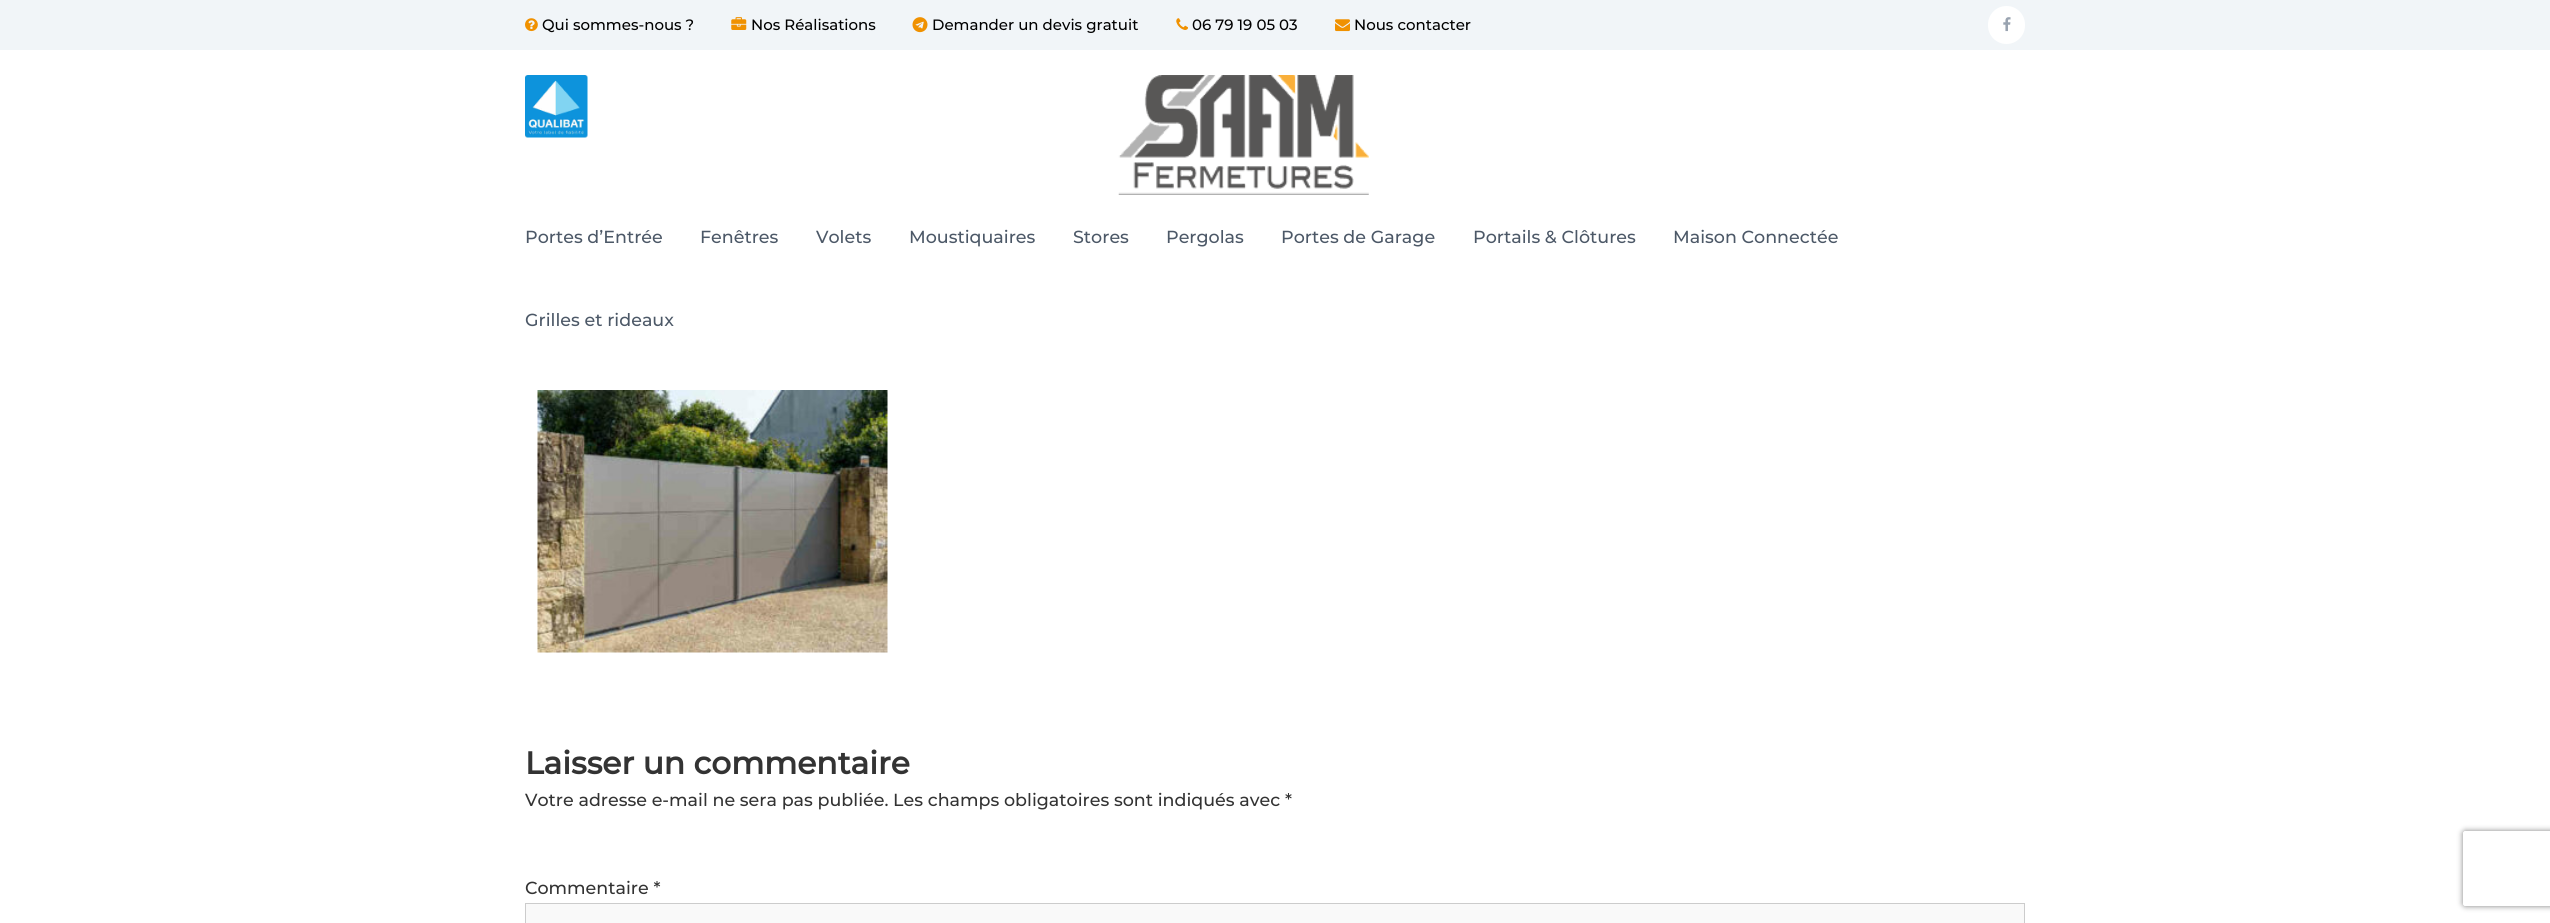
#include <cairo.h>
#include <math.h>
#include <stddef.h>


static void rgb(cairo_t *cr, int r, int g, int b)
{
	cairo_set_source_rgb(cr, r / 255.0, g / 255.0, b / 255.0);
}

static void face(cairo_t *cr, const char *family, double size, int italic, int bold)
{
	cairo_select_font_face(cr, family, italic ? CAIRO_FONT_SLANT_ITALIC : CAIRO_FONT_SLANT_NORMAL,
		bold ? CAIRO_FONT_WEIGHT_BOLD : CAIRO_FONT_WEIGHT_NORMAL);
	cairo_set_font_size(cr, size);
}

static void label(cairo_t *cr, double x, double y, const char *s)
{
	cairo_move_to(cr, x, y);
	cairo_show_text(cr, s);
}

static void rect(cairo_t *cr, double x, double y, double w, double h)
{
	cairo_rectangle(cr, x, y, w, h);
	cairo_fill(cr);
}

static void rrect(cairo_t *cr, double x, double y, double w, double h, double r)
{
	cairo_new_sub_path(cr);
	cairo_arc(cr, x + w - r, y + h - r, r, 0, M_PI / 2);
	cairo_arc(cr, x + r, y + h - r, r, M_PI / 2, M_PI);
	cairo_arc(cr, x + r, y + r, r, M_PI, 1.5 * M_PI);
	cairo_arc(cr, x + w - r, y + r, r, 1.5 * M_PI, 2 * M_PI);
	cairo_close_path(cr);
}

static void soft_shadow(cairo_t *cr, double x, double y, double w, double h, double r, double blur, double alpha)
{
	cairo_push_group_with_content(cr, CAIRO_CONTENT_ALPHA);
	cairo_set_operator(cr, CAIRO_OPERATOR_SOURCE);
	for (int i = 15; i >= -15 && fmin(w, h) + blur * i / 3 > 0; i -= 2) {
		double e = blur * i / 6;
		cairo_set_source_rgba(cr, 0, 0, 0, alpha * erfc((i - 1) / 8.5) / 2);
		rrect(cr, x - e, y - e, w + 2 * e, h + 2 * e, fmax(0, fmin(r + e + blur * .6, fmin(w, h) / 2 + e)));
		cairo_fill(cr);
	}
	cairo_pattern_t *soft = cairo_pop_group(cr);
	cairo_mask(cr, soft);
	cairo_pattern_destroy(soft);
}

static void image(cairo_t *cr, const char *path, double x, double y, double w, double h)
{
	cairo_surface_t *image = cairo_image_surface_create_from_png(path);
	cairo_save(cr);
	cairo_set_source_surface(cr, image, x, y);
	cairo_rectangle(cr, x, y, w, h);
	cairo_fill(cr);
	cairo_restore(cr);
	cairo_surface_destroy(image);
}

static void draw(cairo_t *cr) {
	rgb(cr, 255, 255, 255);
	cairo_paint(cr);
	rgb(cr, 241, 245, 248);
	rect(cr, 0, 0, 2550, 50);
	image(cr, "image0.png", 525, 18, 13, 14);
	face(cr, "Montserrat Medium", 15, 0, 0);
	rgb(cr, 0, 0, 0);
	label(cr, 542, 30, "Qui sommes-nous ?");
	image(cr, "image1.png", 731, 17, 16, 13);
	label(cr, 751, 30, "Nos Réalisations");
	image(cr, "image2.png", 912, 17, 16, 16);
	label(cr, 932, 30, "Demander un devis gratuit");
	image(cr, "image3.png", 1176, 18, 12, 12);
	label(cr, 1192, 30, "06 79 19 05 03");
	image(cr, "image4.png", 1335, 19, 15, 13);
	label(cr, 1354, 30, "Nous contacter");
	rgb(cr, 255, 255, 255);
	rrect(cr, 1988, 6, 37, 38, 18.5);
	cairo_fill(cr);
	image(cr, "image5.png", 2003, 17, 8, 15);
	image(cr, "image6.png", 525, 75, 63, 63);
	image(cr, "image7.png", 1118, 75, 251, 120);
	face(cr, "Montserrat Medium", 17.5, 0, 0);
	rgb(cr, 76, 88, 103);
	label(cr, 525, 243, "Portes d’Entrée");
	label(cr, 700, 243, "Fenêtres");
	label(cr, 816, 243, "Volets");
	label(cr, 909, 243, "Moustiquaires");
	label(cr, 1073, 243, "Stores");
	label(cr, 1166, 243, "Pergolas");
	label(cr, 1281, 243, "Portes de Garage");
	label(cr, 1473, 243, "Portails & Clôtures");
	label(cr, 1673, 243, "Maison Connectée");
	label(cr, 525, 326, "Grilles et rideaux");
	image(cr, "image8.png", 537, 390, 351, 263);
	face(cr, "Montserrat", 31.25, 0, 1);
	rgb(cr, 51, 51, 51);
	label(cr, 525, 774, "Laisser un commentaire");
	face(cr, "Montserrat Medium", 17.5, 0, 0);
	label(cr, 525, 806, "Votre adresse e-mail ne sera pas publiée. Les champs obligatoires sont indiqués avec *");
	label(cr, 525, 894, "Commentaire *");
	rgb(cr, 249, 249, 249);
	cairo_rectangle(cr, 525.5, 903.5, 1499, 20);
	cairo_fill_preserve(cr);
	rgb(cr, 204, 204, 204);
	cairo_set_line_width(cr, 1);
	cairo_stroke(cr);
	cairo_save(cr);
	cairo_set_fill_rule(cr, CAIRO_FILL_RULE_EVEN_ODD);
	cairo_new_path(cr);
	cairo_move_to(cr, 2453, 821);
	cairo_line_to(cr, 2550, 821);
	cairo_line_to(cr, 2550, 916);
	cairo_line_to(cr, 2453, 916);
	cairo_close_path(cr);
	cairo_move_to(cr, 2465.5, 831);
	cairo_line_to(cr, 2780.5, 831);
	cairo_curve_to(cr, 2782, 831, 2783, 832, 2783, 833.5);
	cairo_line_to(cr, 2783, 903.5);
	cairo_curve_to(cr, 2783, 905, 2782, 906, 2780.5, 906);
	cairo_line_to(cr, 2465.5, 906);
	cairo_curve_to(cr, 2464, 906, 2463, 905, 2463, 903.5);
	cairo_line_to(cr, 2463, 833.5);
	cairo_curve_to(cr, 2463, 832, 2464, 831, 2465.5, 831);
	cairo_close_path(cr);
	cairo_clip(cr);
	rgb(cr, 128, 128, 128);
	soft_shadow(cr, 2463, 831, 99, 75, 2.5, 3, 1);
	cairo_restore(cr);
}

int main(void) {
	cairo_surface_t *surface = cairo_image_surface_create(CAIRO_FORMAT_RGB24, 2550, 923);
	cairo_t *cr = cairo_create(surface);
	cairo_font_options_t *options = cairo_font_options_create();
	cairo_font_options_set_hint_metrics(options, CAIRO_HINT_METRICS_OFF);
	cairo_font_options_set_hint_style(options, CAIRO_HINT_STYLE_NONE);
	cairo_set_font_options(cr, options);
	cairo_set_miter_limit(cr, 4);
	draw(cr);
	cairo_surface_write_to_png(surface, "render.png");
	cairo_font_options_destroy(options);
	cairo_destroy(cr);
	cairo_surface_destroy(surface);
	return 0;
}
